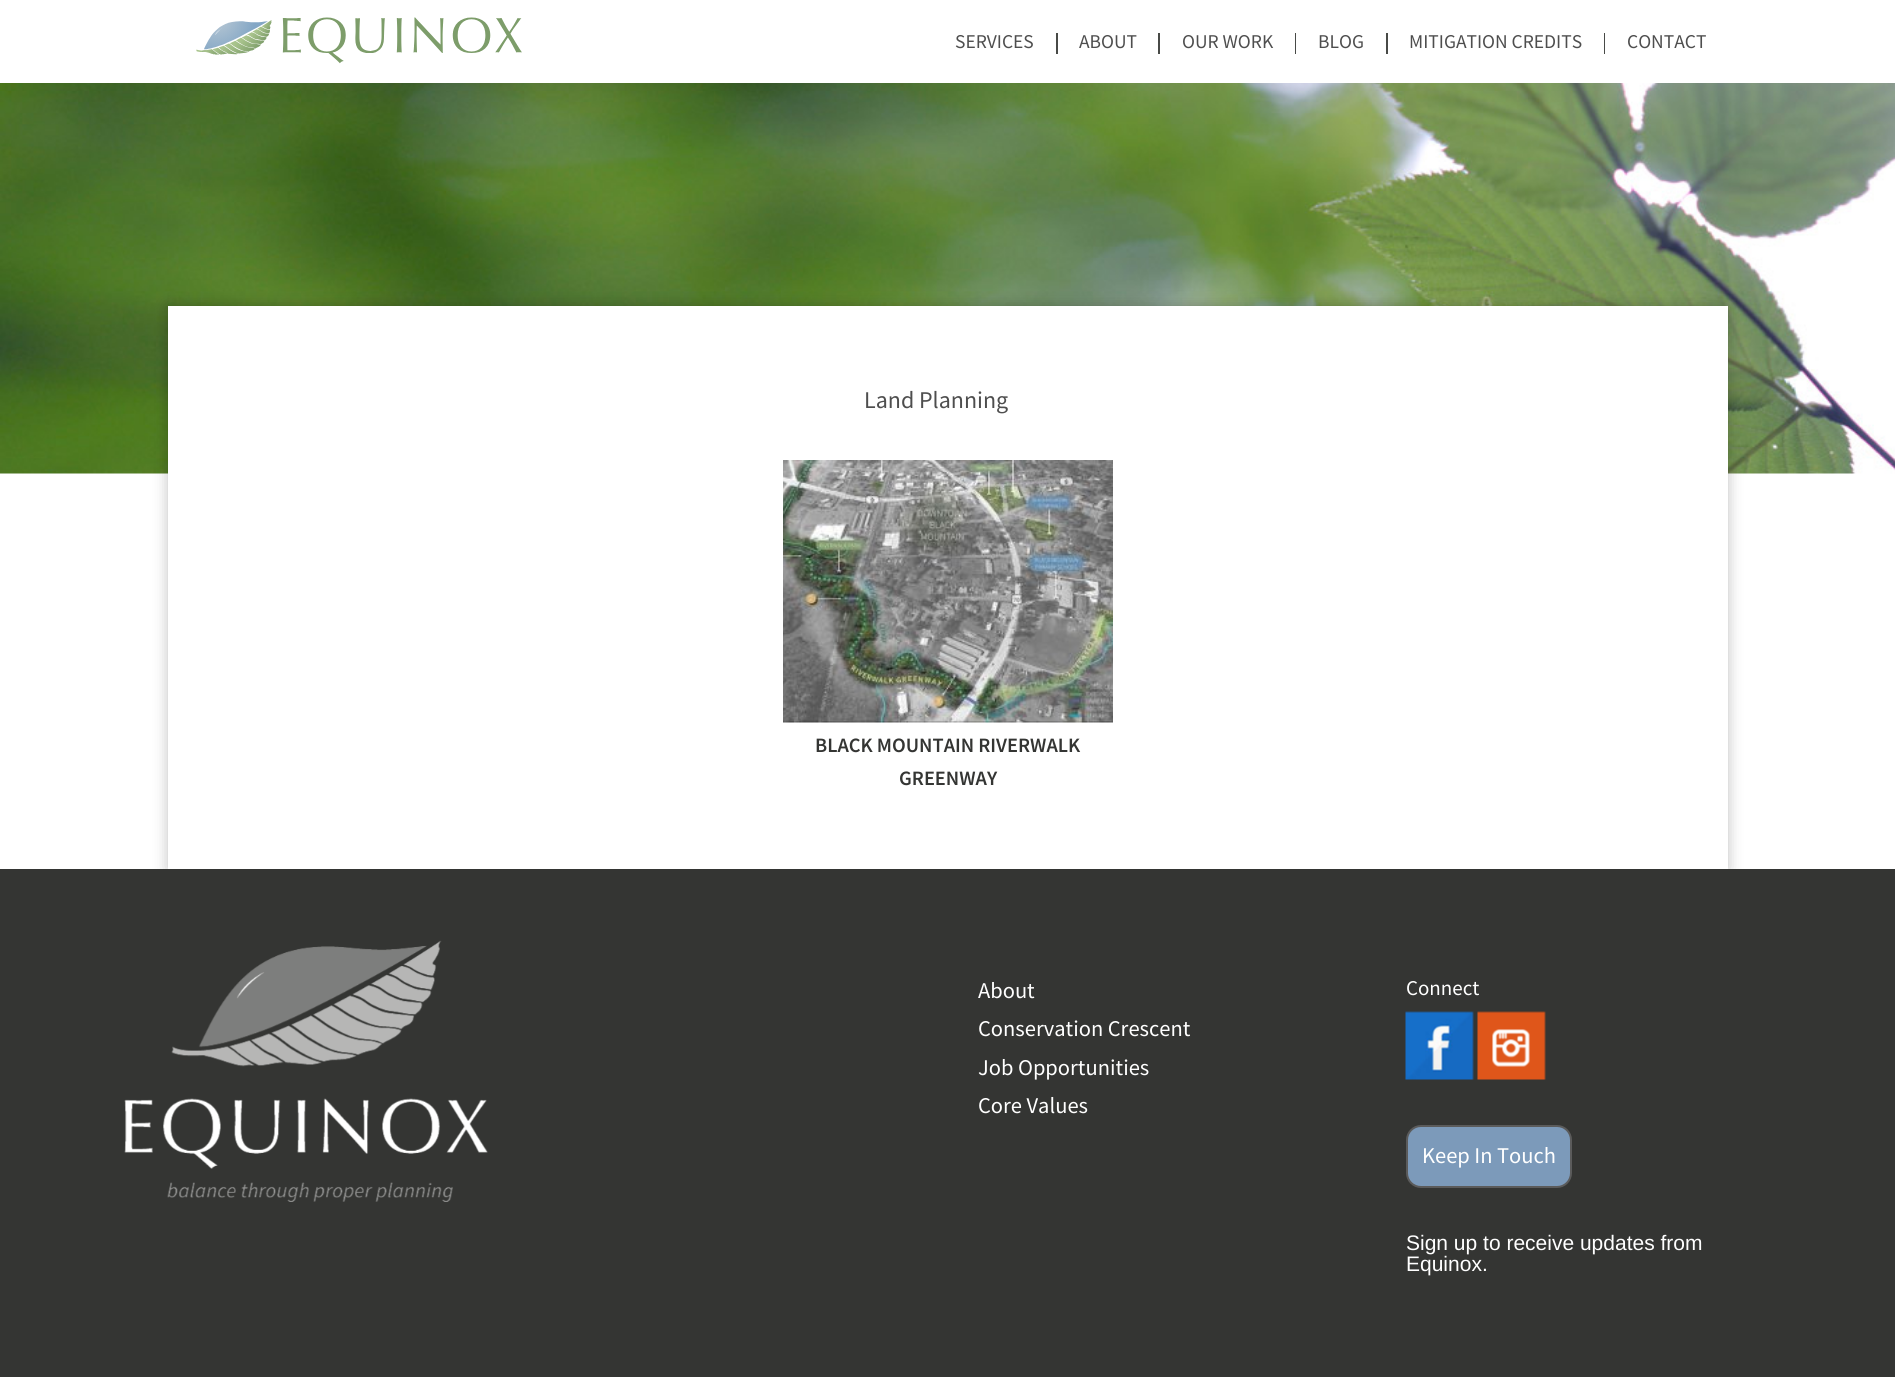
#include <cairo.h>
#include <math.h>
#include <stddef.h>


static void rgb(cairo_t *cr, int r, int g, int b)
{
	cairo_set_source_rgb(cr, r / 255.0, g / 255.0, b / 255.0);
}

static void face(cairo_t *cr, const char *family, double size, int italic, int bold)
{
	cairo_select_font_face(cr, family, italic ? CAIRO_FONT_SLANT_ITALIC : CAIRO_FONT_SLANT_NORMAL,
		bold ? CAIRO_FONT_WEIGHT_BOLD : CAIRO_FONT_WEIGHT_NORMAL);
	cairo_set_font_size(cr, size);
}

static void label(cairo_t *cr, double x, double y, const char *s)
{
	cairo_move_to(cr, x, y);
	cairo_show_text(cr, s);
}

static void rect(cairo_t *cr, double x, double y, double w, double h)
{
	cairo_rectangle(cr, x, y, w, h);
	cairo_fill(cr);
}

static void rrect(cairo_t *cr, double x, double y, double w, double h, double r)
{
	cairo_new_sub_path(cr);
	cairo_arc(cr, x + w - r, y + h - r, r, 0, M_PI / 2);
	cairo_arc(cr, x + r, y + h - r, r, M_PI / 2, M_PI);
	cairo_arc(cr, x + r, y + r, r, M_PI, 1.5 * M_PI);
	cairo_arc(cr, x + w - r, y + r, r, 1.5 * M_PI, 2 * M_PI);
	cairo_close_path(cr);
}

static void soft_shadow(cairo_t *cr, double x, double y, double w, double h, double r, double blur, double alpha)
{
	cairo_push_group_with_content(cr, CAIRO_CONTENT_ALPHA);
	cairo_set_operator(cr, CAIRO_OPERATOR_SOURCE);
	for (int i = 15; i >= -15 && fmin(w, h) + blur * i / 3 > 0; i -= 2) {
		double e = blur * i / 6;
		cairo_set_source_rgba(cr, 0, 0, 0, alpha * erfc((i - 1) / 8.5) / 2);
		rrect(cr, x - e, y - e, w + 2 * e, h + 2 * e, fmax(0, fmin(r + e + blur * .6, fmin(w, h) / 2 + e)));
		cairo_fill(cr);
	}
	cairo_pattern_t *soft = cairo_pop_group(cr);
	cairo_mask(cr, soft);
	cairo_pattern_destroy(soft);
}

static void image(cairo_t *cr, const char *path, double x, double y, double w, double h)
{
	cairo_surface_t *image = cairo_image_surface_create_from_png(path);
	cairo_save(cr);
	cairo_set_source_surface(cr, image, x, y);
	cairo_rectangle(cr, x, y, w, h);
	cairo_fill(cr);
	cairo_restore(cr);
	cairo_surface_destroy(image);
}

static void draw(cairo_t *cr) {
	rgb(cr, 255, 255, 255);
	cairo_paint(cr);
	image(cr, "image0.png", 0, 83, 1895, 391);
	image(cr, "image1.png", 196, 17, 326, 47);
	face(cr, "Source Sans Pro", 19.5, 0, 0);
	rgb(cr, 78, 78, 78);
	label(cr, 955, 48, "SERVICES");
	rgb(cr, 72, 74, 71);
	rect(cr, 1056, 33, 2, 21);
	rgb(cr, 78, 78, 78);
	label(cr, 1079, 48, "ABOUT");
	rgb(cr, 72, 74, 71);
	rect(cr, 1158, 33, 2, 21);
	rgb(cr, 78, 78, 78);
	label(cr, 1182, 48, "OUR WORK");
	rgb(cr, 72, 74, 71);
	rect(cr, 1295, 33, 1, 21);
	rgb(cr, 78, 78, 78);
	label(cr, 1318, 48, "BLOG");
	rgb(cr, 72, 74, 71);
	rect(cr, 1386, 33, 2, 21);
	rgb(cr, 78, 78, 78);
	label(cr, 1409, 48, "MITIGATION CREDITS");
	rgb(cr, 72, 74, 71);
	rect(cr, 1604, 33, 1, 21);
	rgb(cr, 78, 78, 78);
	label(cr, 1627, 48, "CONTACT");
	rgb(cr, 0, 0, 0);
	soft_shadow(cr, 168, 306, 1560, 563, 0, 7.5, 0.25);
	rgb(cr, 255, 255, 255);
	rect(cr, 168, 306, 1560, 563);
	face(cr, "Source Sans Pro", 24, 0, 0);
	rgb(cr, 78, 78, 78);
	label(cr, 864, 408, "Land Planning");
	image(cr, "image2.png", 783, 460, 330, 263);
	face(cr, "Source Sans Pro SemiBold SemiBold", 20.4, 0, 0);
	rgb(cr, 52, 53, 51);
	label(cr, 815, 752, "BLACK MOUNTAIN RIVERWALK");
	label(cr, 899, 785, "GREENWAY");
	rect(cr, 0, 869, 1895, 508);
	image(cr, "image3.png", 124, 940, 364, 262);
	face(cr, "Source Sans Pro", 22.5, 0, 0);
	rgb(cr, 255, 255, 255);
	label(cr, 978, 998, "About");
	label(cr, 978, 1036, "Conservation Crescent");
	label(cr, 978, 1075, "Job Opportunities");
	label(cr, 978, 1113, "Core Values");
	face(cr, "Source Sans Pro", 21, 0, 0);
	label(cr, 1406, 995, "Connect");
	image(cr, "image4.png", 1405, 1011, 69, 69);
	image(cr, "image5.png", 1477, 1011, 69, 69);
	rgb(cr, 124, 154, 186);
	rrect(cr, 1407, 1126, 164, 61, 14);
	cairo_fill_preserve(cr);
	rgb(cr, 91, 91, 91);
	cairo_stroke(cr);
	face(cr, "Source Sans Pro", 22.5, 0, 0);
	rgb(cr, 255, 255, 255);
	label(cr, 1422, 1163, "Keep In Touch");
	face(cr, "Liberation Sans", 21, 0, 0);
	label(cr, 1406, 1250, "Sign up to receive updates from");
	label(cr, 1406, 1271, "Equinox.");
}

int main(void) {
	cairo_surface_t *surface = cairo_image_surface_create(CAIRO_FORMAT_RGB24, 1895, 1377);
	cairo_t *cr = cairo_create(surface);
	cairo_font_options_t *options = cairo_font_options_create();
	cairo_font_options_set_hint_metrics(options, CAIRO_HINT_METRICS_OFF);
	cairo_font_options_set_hint_style(options, CAIRO_HINT_STYLE_NONE);
	cairo_set_font_options(cr, options);
	cairo_set_miter_limit(cr, 4);
	draw(cr);
	cairo_surface_write_to_png(surface, "render.png");
	cairo_font_options_destroy(options);
	cairo_destroy(cr);
	cairo_surface_destroy(surface);
	return 0;
}
